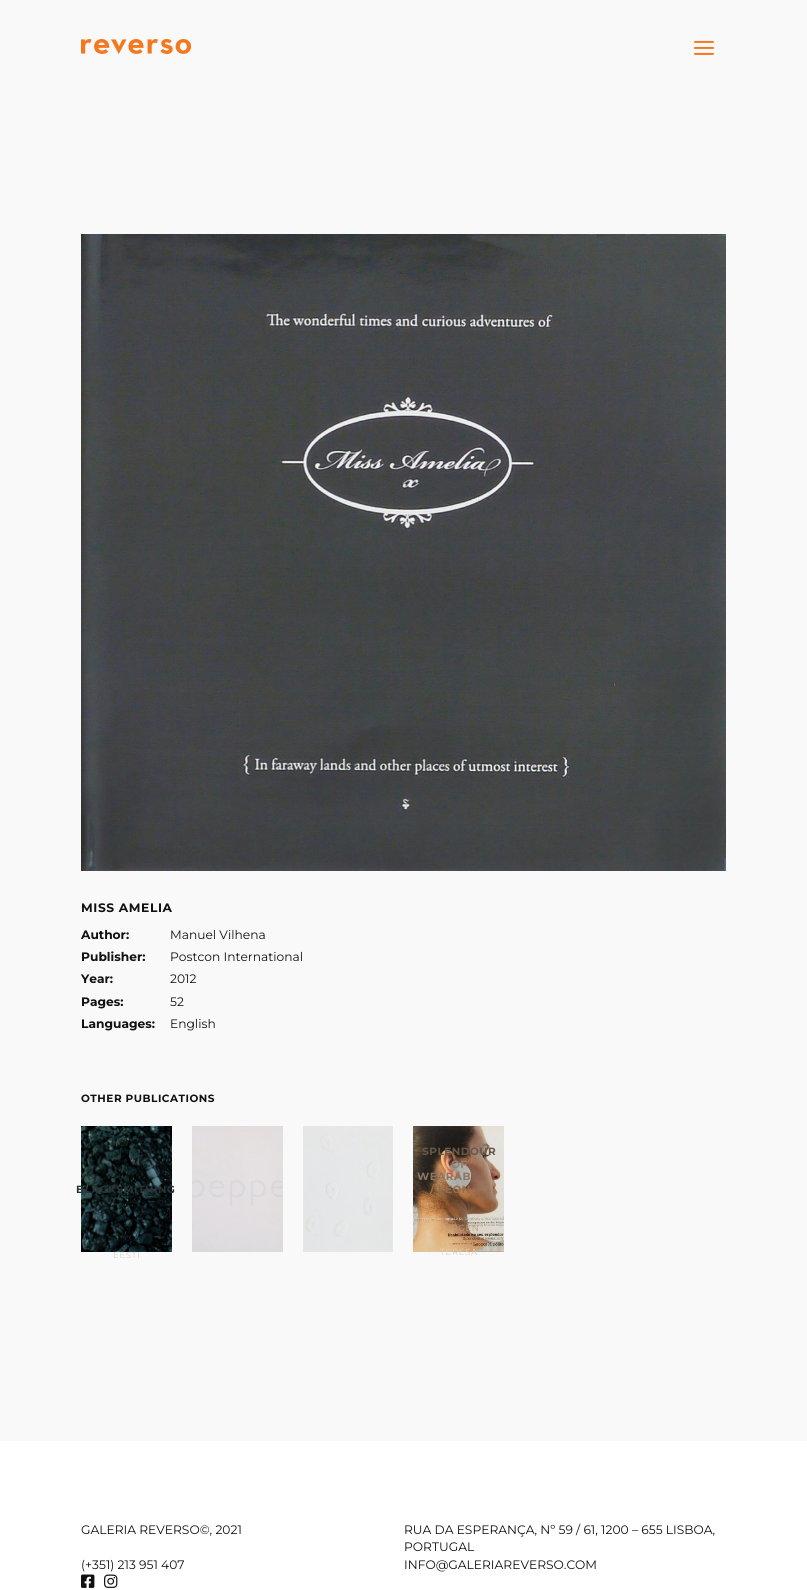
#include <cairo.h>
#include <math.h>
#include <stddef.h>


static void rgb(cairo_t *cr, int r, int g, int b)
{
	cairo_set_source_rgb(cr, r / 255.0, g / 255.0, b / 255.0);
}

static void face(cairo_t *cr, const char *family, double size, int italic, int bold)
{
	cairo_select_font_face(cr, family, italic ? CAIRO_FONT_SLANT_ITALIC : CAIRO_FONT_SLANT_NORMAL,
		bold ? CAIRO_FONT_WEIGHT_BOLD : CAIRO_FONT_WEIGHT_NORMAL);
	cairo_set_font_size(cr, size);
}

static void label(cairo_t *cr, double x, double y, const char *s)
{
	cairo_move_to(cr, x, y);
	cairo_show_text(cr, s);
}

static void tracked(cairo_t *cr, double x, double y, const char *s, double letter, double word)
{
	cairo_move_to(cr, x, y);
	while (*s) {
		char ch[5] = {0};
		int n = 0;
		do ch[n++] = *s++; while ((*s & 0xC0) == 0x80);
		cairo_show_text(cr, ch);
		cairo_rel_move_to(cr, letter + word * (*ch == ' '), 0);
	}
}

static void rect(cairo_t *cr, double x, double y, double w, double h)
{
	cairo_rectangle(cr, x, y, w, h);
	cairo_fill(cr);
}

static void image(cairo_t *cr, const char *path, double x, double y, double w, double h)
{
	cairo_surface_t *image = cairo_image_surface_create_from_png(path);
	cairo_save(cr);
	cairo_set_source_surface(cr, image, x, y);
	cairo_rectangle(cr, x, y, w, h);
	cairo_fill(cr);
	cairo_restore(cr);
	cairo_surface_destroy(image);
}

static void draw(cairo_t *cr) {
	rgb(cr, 249, 249, 249);
	cairo_paint(cr);
	image(cr, "image0.png", 81, 39, 110, 15);
	image(cr, "image1.png", 694, 40, 20, 15);
	image(cr, "image2.png", 81, 234, 645, 637);
	face(cr, "Montserrat Thin", 12.25, 0, 0);
	rgb(cr, 17, 17, 17);
	tracked(cr, 81, 912, "MISS AMELIA", 0.6, 0);
	label(cr, 81, 939, "Author:");
	face(cr, "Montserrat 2 Thin", 12.25, 0, 0);
	label(cr, 170, 939, "Manuel Vilhena");
	face(cr, "Montserrat Thin", 12.25, 0, 0);
	label(cr, 81, 961, "Publisher:");
	face(cr, "Montserrat 2 Thin", 12.25, 0, 0);
	label(cr, 170, 961, "Postcon International");
	face(cr, "Montserrat Thin", 12.25, 0, 0);
	label(cr, 81, 983, "Year:");
	face(cr, "Montserrat 2 Thin", 12.25, 0, 0);
	label(cr, 170, 983, "2012");
	face(cr, "Montserrat Thin", 12.25, 0, 0);
	label(cr, 81, 1006, "Pages:");
	face(cr, "Montserrat 2 Thin", 12.25, 0, 0);
	label(cr, 170, 1006, "52");
	face(cr, "Montserrat Thin", 12.25, 0, 0);
	label(cr, 81, 1028, "Languages:");
	face(cr, "Montserrat 2 Thin", 12.25, 0, 0);
	label(cr, 170, 1028, "English");
	face(cr, "Montserrat Thin", 10.5, 0, 0);
	tracked(cr, 81, 1102, "OTHER PUBLICATIONS", 0.5, 0);
	image(cr, "image3.png", 81, 1126, 91, 126);
	rgb(cr, 39, 51, 53);
	tracked(cr, 76, 1193, "BLACKSMITHING", 0.5, 0);
	face(cr, "Montserrat 2 Thin", 8.75, 0, 0);
	rgb(cr, 211, 213, 214);
	tracked(cr, 113, 1258, "EESTI", 0.5, 0);
	image(cr, "image4.png", 192, 1126, 91, 126);
	image(cr, "image5.png", 303, 1126, 90, 126);
	image(cr, "image6.png", 413, 1126, 91, 126);
	face(cr, "Montserrat Thin", 10.5, 0, 0);
	rgb(cr, 104, 88, 75);
	tracked(cr, 422, 1155, "SPLENDOUR", 0.5, 0);
	rgb(cr, 147, 126, 114);
	tracked(cr, 451, 1168, "OF", 0.5, 0);
	rgb(cr, 142, 117, 99);
	tracked(cr, 417, 1180, "WEARAB", 0.5, 0);
	rgb(cr, 147, 108, 78);
	tracked(cr, 430, 1193, "/ LEON", 0.5, 0);
	face(cr, "Montserrat 2 Thin", 8.75, 0, 0);
	rgb(cr, 191, 156, 121);
	tracked(cr, 439, 1231, "JÜRGEN", 0.5, 0);
	rgb(cr, 231, 208, 184);
	tracked(cr, 440, 1255, "TERESA", 0.5, 0);
	rgb(cr, 255, 255, 255);
	rect(cr, 0, 1441, 807, 149);
	face(cr, "Montserrat 2 Thin", 12.25, 0, 0);
	rgb(cr, 17, 17, 17);
	label(cr, 81, 1534, "GALERIA REVERSO©, 2021");
	label(cr, 404, 1534, "RUA DA ESPERANÇA, Nº 59 / 61, 1200 – 655 LISBOA,");
	label(cr, 404, 1551, "PORTUGAL");
	label(cr, 81, 1569, "(+351) 213 951 407");
	label(cr, 404, 1569, "INFO@GALERIAREVERSO.COM");
	image(cr, "image7.png", 81, 1574, 14, 14);
	image(cr, "image8.png", 104, 1574, 14, 14);
}

int main(void) {
	cairo_surface_t *surface = cairo_image_surface_create(CAIRO_FORMAT_RGB24, 807, 1590);
	cairo_t *cr = cairo_create(surface);
	cairo_font_options_t *options = cairo_font_options_create();
	cairo_font_options_set_hint_metrics(options, CAIRO_HINT_METRICS_OFF);
	cairo_font_options_set_hint_style(options, CAIRO_HINT_STYLE_NONE);
	cairo_set_font_options(cr, options);
	cairo_set_miter_limit(cr, 4);
	draw(cr);
	cairo_surface_write_to_png(surface, "render.png");
	cairo_font_options_destroy(options);
	cairo_destroy(cr);
	cairo_surface_destroy(surface);
	return 0;
}
